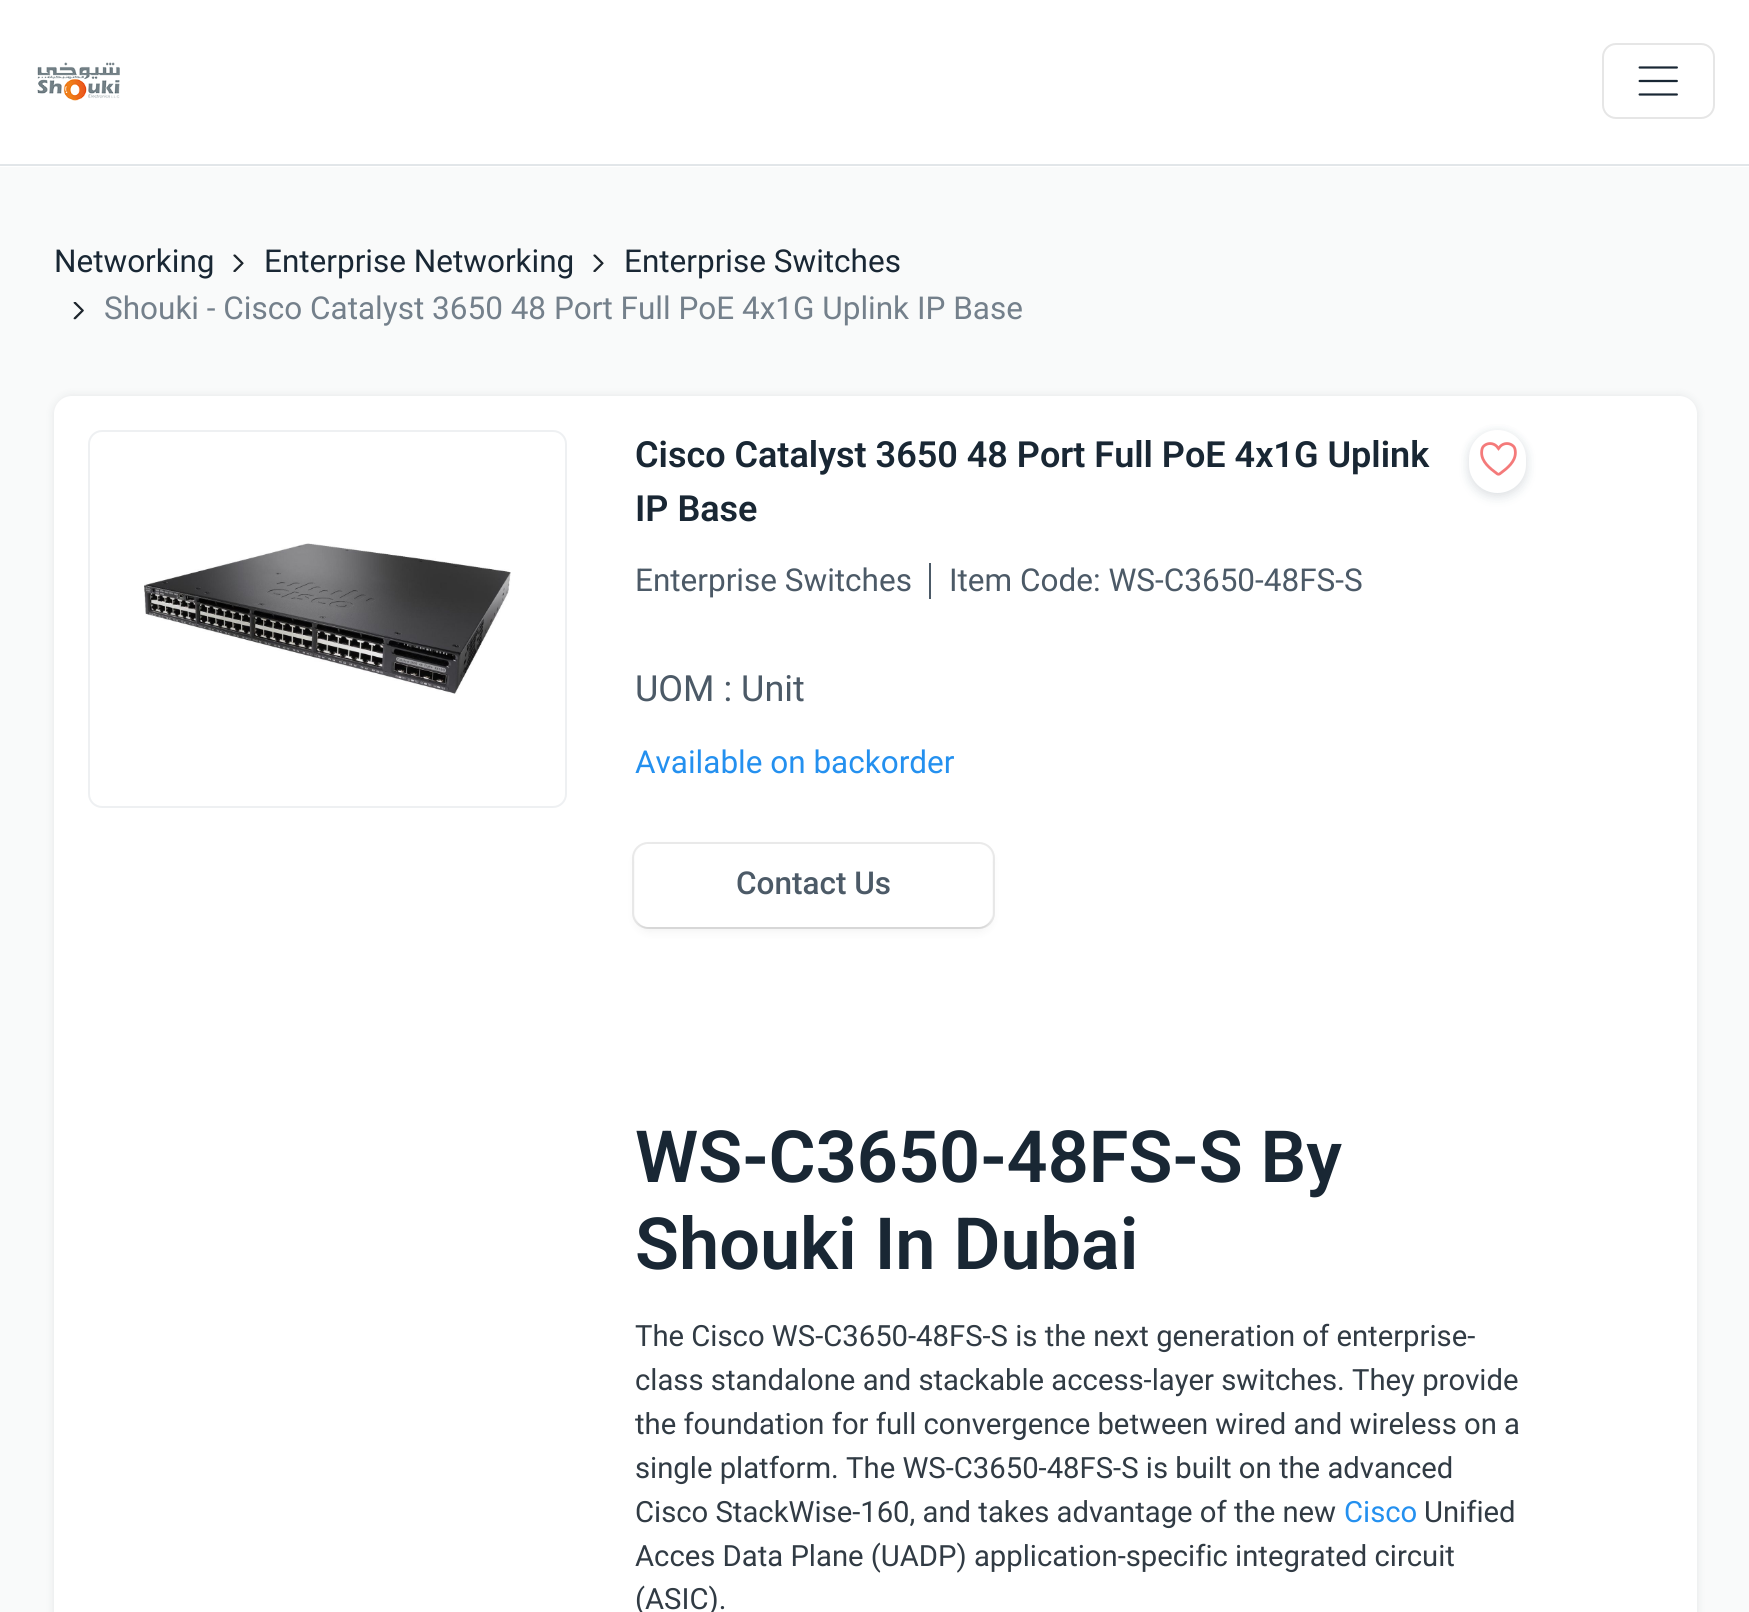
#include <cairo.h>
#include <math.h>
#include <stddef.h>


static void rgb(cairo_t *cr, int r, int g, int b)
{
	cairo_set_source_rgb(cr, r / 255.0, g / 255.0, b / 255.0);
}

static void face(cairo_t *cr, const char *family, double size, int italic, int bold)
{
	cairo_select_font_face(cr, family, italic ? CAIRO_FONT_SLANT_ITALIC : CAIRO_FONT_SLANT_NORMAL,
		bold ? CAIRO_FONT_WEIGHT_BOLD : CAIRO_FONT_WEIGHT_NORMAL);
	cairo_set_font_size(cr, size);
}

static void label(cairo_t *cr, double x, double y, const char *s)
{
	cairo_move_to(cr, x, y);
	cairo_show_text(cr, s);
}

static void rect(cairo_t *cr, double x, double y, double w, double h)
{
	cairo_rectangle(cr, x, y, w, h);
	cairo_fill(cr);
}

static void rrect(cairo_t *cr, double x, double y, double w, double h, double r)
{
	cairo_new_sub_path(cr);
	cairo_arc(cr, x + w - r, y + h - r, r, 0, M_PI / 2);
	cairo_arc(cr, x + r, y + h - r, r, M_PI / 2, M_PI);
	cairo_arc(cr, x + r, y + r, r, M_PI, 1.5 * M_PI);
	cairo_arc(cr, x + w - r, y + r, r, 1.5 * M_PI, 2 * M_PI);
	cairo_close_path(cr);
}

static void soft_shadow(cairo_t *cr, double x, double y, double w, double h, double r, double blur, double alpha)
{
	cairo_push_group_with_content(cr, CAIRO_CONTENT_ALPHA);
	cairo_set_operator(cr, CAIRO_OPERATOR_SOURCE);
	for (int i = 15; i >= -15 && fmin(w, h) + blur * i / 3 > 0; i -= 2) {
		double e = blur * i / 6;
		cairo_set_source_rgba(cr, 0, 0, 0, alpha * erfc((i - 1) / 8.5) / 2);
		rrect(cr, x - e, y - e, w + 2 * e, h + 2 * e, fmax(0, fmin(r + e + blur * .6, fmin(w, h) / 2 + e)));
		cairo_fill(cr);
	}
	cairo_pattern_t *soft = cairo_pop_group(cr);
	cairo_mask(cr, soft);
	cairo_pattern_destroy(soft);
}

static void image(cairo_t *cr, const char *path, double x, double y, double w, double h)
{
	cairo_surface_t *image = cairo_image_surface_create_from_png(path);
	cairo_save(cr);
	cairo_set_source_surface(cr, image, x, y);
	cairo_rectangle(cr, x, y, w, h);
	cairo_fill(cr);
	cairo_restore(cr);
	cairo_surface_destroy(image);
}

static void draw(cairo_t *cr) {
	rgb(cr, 249, 250, 250);
	cairo_paint(cr);
	rgb(cr, 255, 255, 255);
	rect(cr, 0, 0, 1749, 167);
	rgb(cr, 226, 230, 233);
	rect(cr, 0, 164, 1749, 2);
	image(cr, "image0.png", 37, 62, 83, 39);
	rrect(cr, 1603, 44, 111, 74, 13);
	rgb(cr, 230, 230, 230);
	cairo_stroke(cr);
	image(cr, "image1.png", 1638, 66, 40, 30);
	face(cr, "Roboto", 31.5, 0, 0);
	rgb(cr, 25, 39, 52);
	label(cr, 54, 272, "Networking");
	image(cr, "image2.png", 233, 254, 11, 18);
	label(cr, 264, 272, "Enterprise Networking");
	image(cr, "image2.png", 593, 254, 11, 18);
	label(cr, 624, 272, "Enterprise Switches");
	image(cr, "image3.png", 73, 302, 11, 18);
	rgb(cr, 116, 128, 139);
	label(cr, 104, 319, "Shouki - Cisco Catalyst 3650 48 Port Full PoE 4x1G Uplink IP Base");
	rgb(cr, 25, 39, 52);
	soft_shadow(cr, 54, 396, 1643, 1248, 18, 4.5, 0.1);
	rgb(cr, 255, 255, 255);
	rrect(cr, 54, 396, 1643, 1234, 18);
	cairo_fill(cr);
	rrect(cr, 89, 431, 477, 376, 13);
	rgb(cr, 238, 240, 242);
	cairo_stroke(cr);
	image(cr, "image4.png", 144, 543, 367, 151);
	face(cr, "Roboto SemiBold", 36, 0, 0);
	rgb(cr, 25, 39, 52);
	label(cr, 635, 467, "Cisco Catalyst 3650 48 Port Full PoE 4x1G Uplink");
	label(cr, 635, 521, "IP Base");
	rgb(cr, 17, 43, 66);
	soft_shadow(cr, 1469, 432, 57, 63, 28.5, 4.5, 0.1);
	soft_shadow(cr, 1469, 434, 57, 63, 28.5, 7, 0.08);
	rgb(cr, 255, 255, 255);
	rrect(cr, 1469, 430, 57, 63, 28.5);
	cairo_fill(cr);
	image(cr, "image5.png", 1480, 442, 37, 34);
	face(cr, "Roboto", 31.5, 0, 0);
	rgb(cr, 76, 90, 103);
	label(cr, 635, 591, "Enterprise Switches");
	rect(cr, 929, 563, 2, 36);
	label(cr, 949, 591, "Item Code: WS-C3650-48FS-S");
	face(cr, "Roboto", 36, 0, 0);
	label(cr, 635, 701, "UOM : Unit");
	face(cr, "Roboto", 31.5, 0, 0);
	rgb(cr, 36, 144, 239);
	label(cr, 635, 773, "Available on backorder");
	cairo_save(cr);
	cairo_set_fill_rule(cr, CAIRO_FILL_RULE_EVEN_ODD);
	cairo_new_path(cr);
	cairo_move_to(cr, 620, 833);
	cairo_line_to(cr, 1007, 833);
	cairo_line_to(cr, 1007, 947);
	cairo_line_to(cr, 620, 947);
	cairo_close_path(cr);
	cairo_move_to(cr, 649, 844);
	cairo_line_to(cr, 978, 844);
	cairo_curve_to(cr, 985.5, 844, 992, 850.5, 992, 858);
	cairo_line_to(cr, 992, 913);
	cairo_curve_to(cr, 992, 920.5, 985.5, 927, 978, 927);
	cairo_line_to(cr, 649, 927);
	cairo_curve_to(cr, 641.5, 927, 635, 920.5, 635, 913);
	cairo_line_to(cr, 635, 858);
	cairo_curve_to(cr, 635, 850.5, 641.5, 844, 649, 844);
	cairo_close_path(cr);
	cairo_clip(cr);
	rgb(cr, 0, 0, 0);
	soft_shadow(cr, 635, 848, 357, 84, 14, 4.5, 0.05);
	cairo_restore(cr);
	rrect(cr, 633, 843, 361, 85, 15);
	cairo_set_source_rgba(cr, 0, 0, 0, 0.08);
	cairo_stroke(cr);
	cairo_set_source_rgba(cr, 0, 0, 0, 0.05);
	cairo_new_path(cr);
	cairo_move_to(cr, 635, 918);
	cairo_curve_to(cr, 637, 924, 642, 929, 649, 929);
	cairo_line_to(cr, 978, 929);
	cairo_curve_to(cr, 985, 929, 991, 924, 992, 916);
	cairo_curve_to(cr, 991, 922, 985, 927, 979, 927);
	cairo_line_to(cr, 648, 927);
	cairo_curve_to(cr, 642, 927, 637, 923, 635, 918);
	cairo_close_path(cr);
	cairo_fill(cr);
	face(cr, "Roboto Medium", 31.5, 0, 0);
	rgb(cr, 76, 90, 103);
	label(cr, 736, 894, "Contact Us");
	face(cr, "Roboto SemiBold", 72, 0, 0);
	rgb(cr, 25, 39, 52);
	label(cr, 635, 1182, "WS-C3650-48FS-S By");
	label(cr, 635, 1269, "Shouki In Dubai");
	face(cr, "Roboto", 29.25, 0, 0);
	rgb(cr, 49, 59, 68);
	label(cr, 635, 1346, "The Cisco WS-C3650-48FS-S is the next generation of enterprise-");
	label(cr, 635, 1390, "class standalone and stackable access-layer switches. They provide");
	label(cr, 635, 1434, "the foundation for full convergence between wired and wireless on a");
	label(cr, 635, 1478, "single platform. The WS-C3650-48FS-S is built on the advanced");
	label(cr, 635, 1522, "Cisco StackWise-160, and takes advantage of the new");
	rgb(cr, 36, 144, 239);
	label(cr, 1344, 1522, "Cisco");
	rgb(cr, 49, 59, 68);
	label(cr, 1424, 1522, "Unified");
	label(cr, 635, 1566, "Acces Data Plane (UADP) application-specific integrated circuit");
	label(cr, 635, 1609, "(ASIC).");
}

int main(void) {
	cairo_surface_t *surface = cairo_image_surface_create(CAIRO_FORMAT_RGB24, 1749, 1612);
	cairo_t *cr = cairo_create(surface);
	cairo_font_options_t *options = cairo_font_options_create();
	cairo_font_options_set_hint_metrics(options, CAIRO_HINT_METRICS_OFF);
	cairo_font_options_set_hint_style(options, CAIRO_HINT_STYLE_NONE);
	cairo_set_font_options(cr, options);
	cairo_set_miter_limit(cr, 4);
	draw(cr);
	cairo_surface_write_to_png(surface, "render.png");
	cairo_font_options_destroy(options);
	cairo_destroy(cr);
	cairo_surface_destroy(surface);
	return 0;
}
